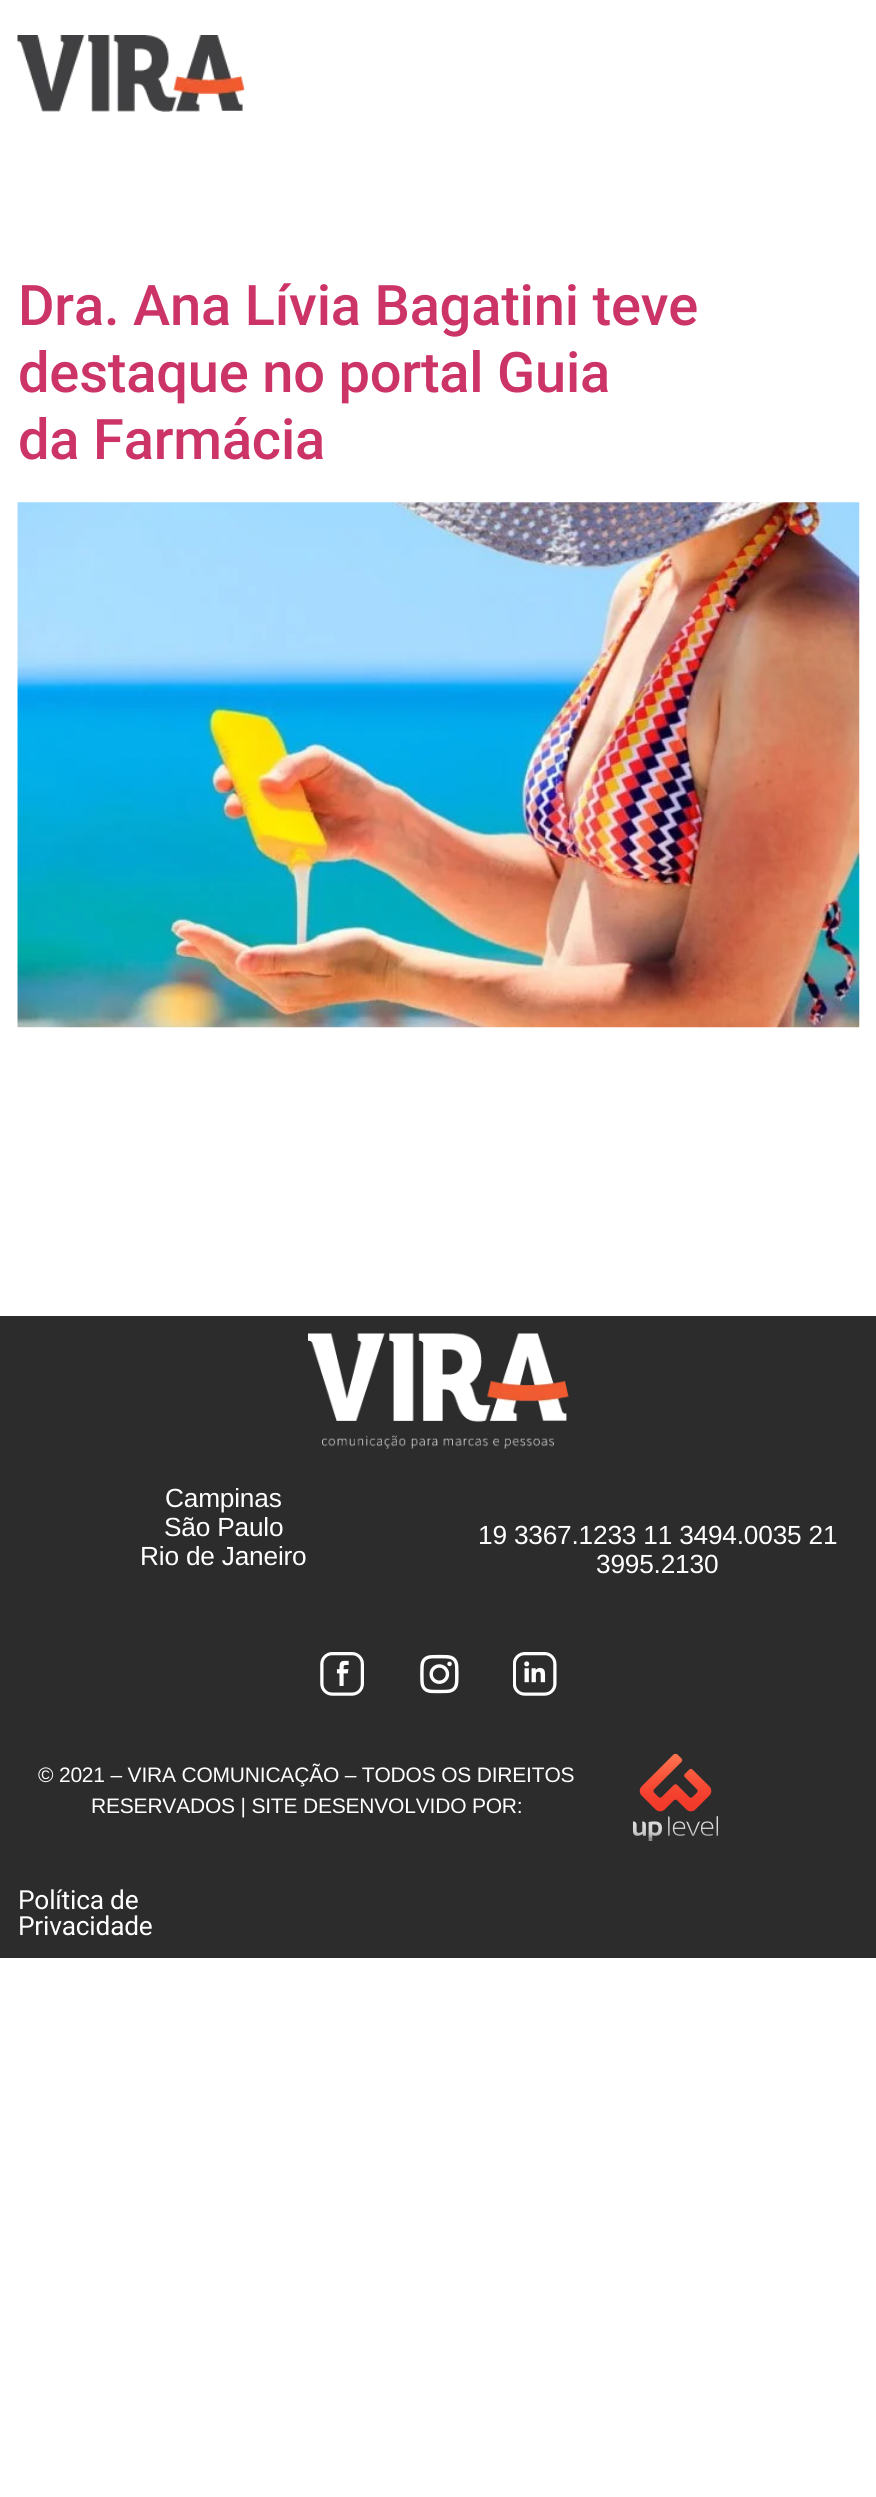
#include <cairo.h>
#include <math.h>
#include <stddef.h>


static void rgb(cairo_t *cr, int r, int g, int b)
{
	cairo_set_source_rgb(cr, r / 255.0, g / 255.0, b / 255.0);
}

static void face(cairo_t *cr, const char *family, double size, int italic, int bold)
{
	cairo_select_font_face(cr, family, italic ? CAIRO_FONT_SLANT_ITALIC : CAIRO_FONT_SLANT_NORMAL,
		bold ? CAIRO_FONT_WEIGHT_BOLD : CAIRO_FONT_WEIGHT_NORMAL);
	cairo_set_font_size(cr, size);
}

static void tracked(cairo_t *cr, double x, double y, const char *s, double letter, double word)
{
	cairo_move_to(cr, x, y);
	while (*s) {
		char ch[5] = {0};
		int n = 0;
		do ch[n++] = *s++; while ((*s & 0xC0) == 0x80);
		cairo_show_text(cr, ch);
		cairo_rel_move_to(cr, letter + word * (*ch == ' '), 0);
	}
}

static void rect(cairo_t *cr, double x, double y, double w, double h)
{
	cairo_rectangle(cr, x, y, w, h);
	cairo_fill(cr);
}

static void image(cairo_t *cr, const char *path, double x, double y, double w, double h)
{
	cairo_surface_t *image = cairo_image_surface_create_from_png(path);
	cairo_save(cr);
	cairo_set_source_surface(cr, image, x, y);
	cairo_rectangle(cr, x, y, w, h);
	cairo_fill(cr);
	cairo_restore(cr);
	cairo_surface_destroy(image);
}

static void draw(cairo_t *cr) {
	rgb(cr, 255, 255, 255);
	cairo_paint(cr);
	image(cr, "image0.png", 17, 35, 228, 77);
	face(cr, "Roboto Medium", 56, 0, 0);
	rgb(cr, 204, 51, 102);
	tracked(cr, 18, 325, "Dra. Ana Lívia Bagatini teve", -0.2, 0);
	tracked(cr, 18, 392, "destaque no portal Guia", -0.2, 0);
	tracked(cr, 18, 459, "da Farmácia", -0.2, 0);
	image(cr, "image1.png", 17, 502, 843, 526);
	rgb(cr, 44, 44, 44);
	rect(cr, 0, 1316, 876, 642);
	image(cr, "image2.png", 308, 1333, 261, 116);
	face(cr, "Liberation Sans", 26.25, 0, 0);
	rgb(cr, 255, 255, 255);
	tracked(cr, 165, 1507, "Campinas", -0.2, 0);
	tracked(cr, 164, 1536, "São Paulo", -0.2, 0);
	tracked(cr, 140, 1565, "Rio de Janeiro", -0.2, 0);
	tracked(cr, 478, 1544, "19 3367.1233 11 3494.0035 21", -0.2, 0);
	tracked(cr, 596, 1573, "3995.2130", -0.2, 0);
	image(cr, "image3.png", 320, 1652, 44, 44);
	image(cr, "image4.png", 420, 1654, 39, 40);
	image(cr, "image5.png", 513, 1652, 44, 44);
	face(cr, "Liberation Sans", 21, 0, 0);
	tracked(cr, 38, 1782, "© 2021 – VIRA COMUNICAÇÃO – TODOS OS DIREITOS", -0.2, 0);
	tracked(cr, 91, 1813, "RESERVADOS | SITE DESENVOLVIDO POR:", -0.2, 0);
	image(cr, "image6.png", 632, 1754, 87, 87);
	face(cr, "Roboto", 26.25, 0, 0);
	tracked(cr, 18, 1909, "Política de", -0.2, 0);
	tracked(cr, 18, 1935, "Privacidade", -0.2, 0);
}

int main(void) {
	cairo_surface_t *surface = cairo_image_surface_create(CAIRO_FORMAT_RGB24, 876, 2497);
	cairo_t *cr = cairo_create(surface);
	cairo_font_options_t *options = cairo_font_options_create();
	cairo_font_options_set_hint_metrics(options, CAIRO_HINT_METRICS_OFF);
	cairo_font_options_set_hint_style(options, CAIRO_HINT_STYLE_NONE);
	cairo_set_font_options(cr, options);
	cairo_set_miter_limit(cr, 4);
	draw(cr);
	cairo_surface_write_to_png(surface, "render.png");
	cairo_font_options_destroy(options);
	cairo_destroy(cr);
	cairo_surface_destroy(surface);
	return 0;
}
